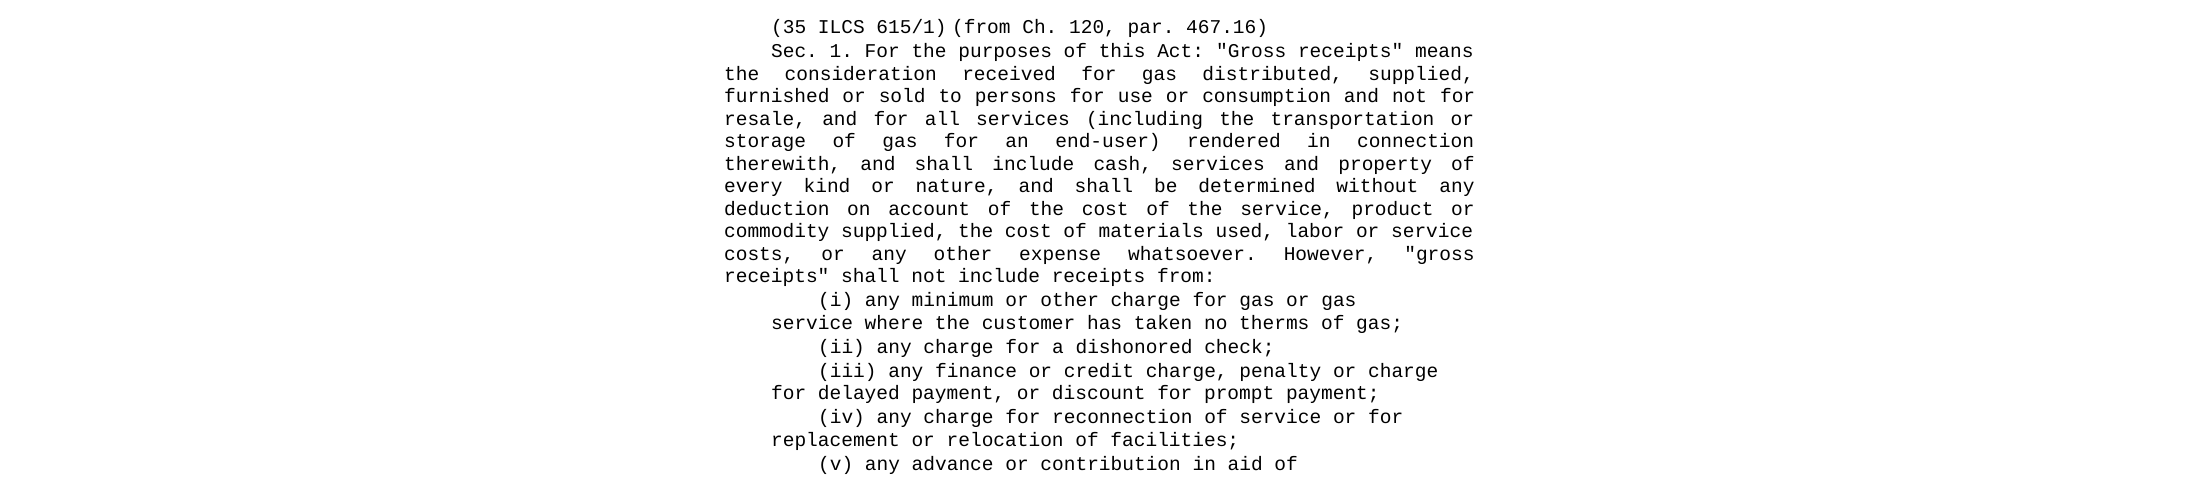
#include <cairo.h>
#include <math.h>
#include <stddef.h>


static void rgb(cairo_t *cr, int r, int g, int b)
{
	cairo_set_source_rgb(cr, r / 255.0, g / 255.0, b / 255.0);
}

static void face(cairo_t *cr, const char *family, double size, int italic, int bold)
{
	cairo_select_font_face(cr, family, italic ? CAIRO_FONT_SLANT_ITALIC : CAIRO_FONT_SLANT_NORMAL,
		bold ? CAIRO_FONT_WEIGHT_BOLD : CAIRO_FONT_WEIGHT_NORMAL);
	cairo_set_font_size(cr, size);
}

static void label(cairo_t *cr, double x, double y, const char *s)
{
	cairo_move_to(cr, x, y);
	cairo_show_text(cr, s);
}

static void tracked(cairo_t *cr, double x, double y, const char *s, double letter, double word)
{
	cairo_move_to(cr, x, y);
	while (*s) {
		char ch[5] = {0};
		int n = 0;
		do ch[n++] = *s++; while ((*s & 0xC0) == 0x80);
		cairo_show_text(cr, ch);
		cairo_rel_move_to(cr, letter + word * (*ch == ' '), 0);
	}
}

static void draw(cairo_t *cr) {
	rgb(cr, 255, 255, 255);
	cairo_paint(cr);
	face(cr, "Liberation Mono", 19.5, 0, 0);
	rgb(cr, 0, 0, 0);
	label(cr, 771, 33, "(35 ILCS 615/1)");
	label(cr, 952, 33, "(from Ch. 120, par. 467.16)");
	label(cr, 771, 57, "Sec. 1. For the purposes of this Act:");
	label(cr, 1216, 57, "\"Gross receipts\" means");
	tracked(cr, 724, 80, "the consideration received for gas distributed, supplied,", 0, 13.75);
	tracked(cr, 724, 102, "furnished or sold to persons for use or consumption and not for", 0, 1.25);
	tracked(cr, 724, 125, "resale, and for all services (including the transportation or", 0, 4.5);
	tracked(cr, 724, 147, "storage of gas for an end-user) rendered in connection", 0, 14.75);
	tracked(cr, 724, 170, "therewith, and shall include cash, services and property of", 0, 7.5);
	tracked(cr, 724, 192, "every kind or nature, and shall be determined without any", 0, 9.25);
	tracked(cr, 724, 215, "deduction on account of the cost of the service, product or", 0, 6);
	label(cr, 724, 237, "commodity supplied, the cost of materials used, labor or service");
	tracked(cr, 724, 260, "costs, or any other expense whatsoever. However, \"gross", 0, 15.25);
	label(cr, 724, 282, "receipts\" shall not include receipts from:");
	label(cr, 818, 306, "(i) any minimum or other charge for gas or gas");
	label(cr, 771, 329, "service where the customer has taken no therms of gas;");
	label(cr, 818, 353, "(ii) any charge for a dishonored check;");
	label(cr, 818, 377, "(iii) any finance or credit charge, penalty or charge");
	label(cr, 771, 399, "for delayed payment, or discount for prompt payment;");
	label(cr, 818, 423, "(iv) any charge for reconnection of service or for");
	label(cr, 771, 446, "replacement or relocation of facilities;");
	label(cr, 818, 470, "(v) any advance or contribution in aid of");
}

int main(void) {
	cairo_surface_t *surface = cairo_image_surface_create(CAIRO_FORMAT_RGB24, 2197, 481);
	cairo_t *cr = cairo_create(surface);
	cairo_font_options_t *options = cairo_font_options_create();
	cairo_font_options_set_hint_metrics(options, CAIRO_HINT_METRICS_OFF);
	cairo_font_options_set_hint_style(options, CAIRO_HINT_STYLE_NONE);
	cairo_set_font_options(cr, options);
	cairo_set_miter_limit(cr, 4);
	draw(cr);
	cairo_surface_write_to_png(surface, "render.png");
	cairo_font_options_destroy(options);
	cairo_destroy(cr);
	cairo_surface_destroy(surface);
	return 0;
}
